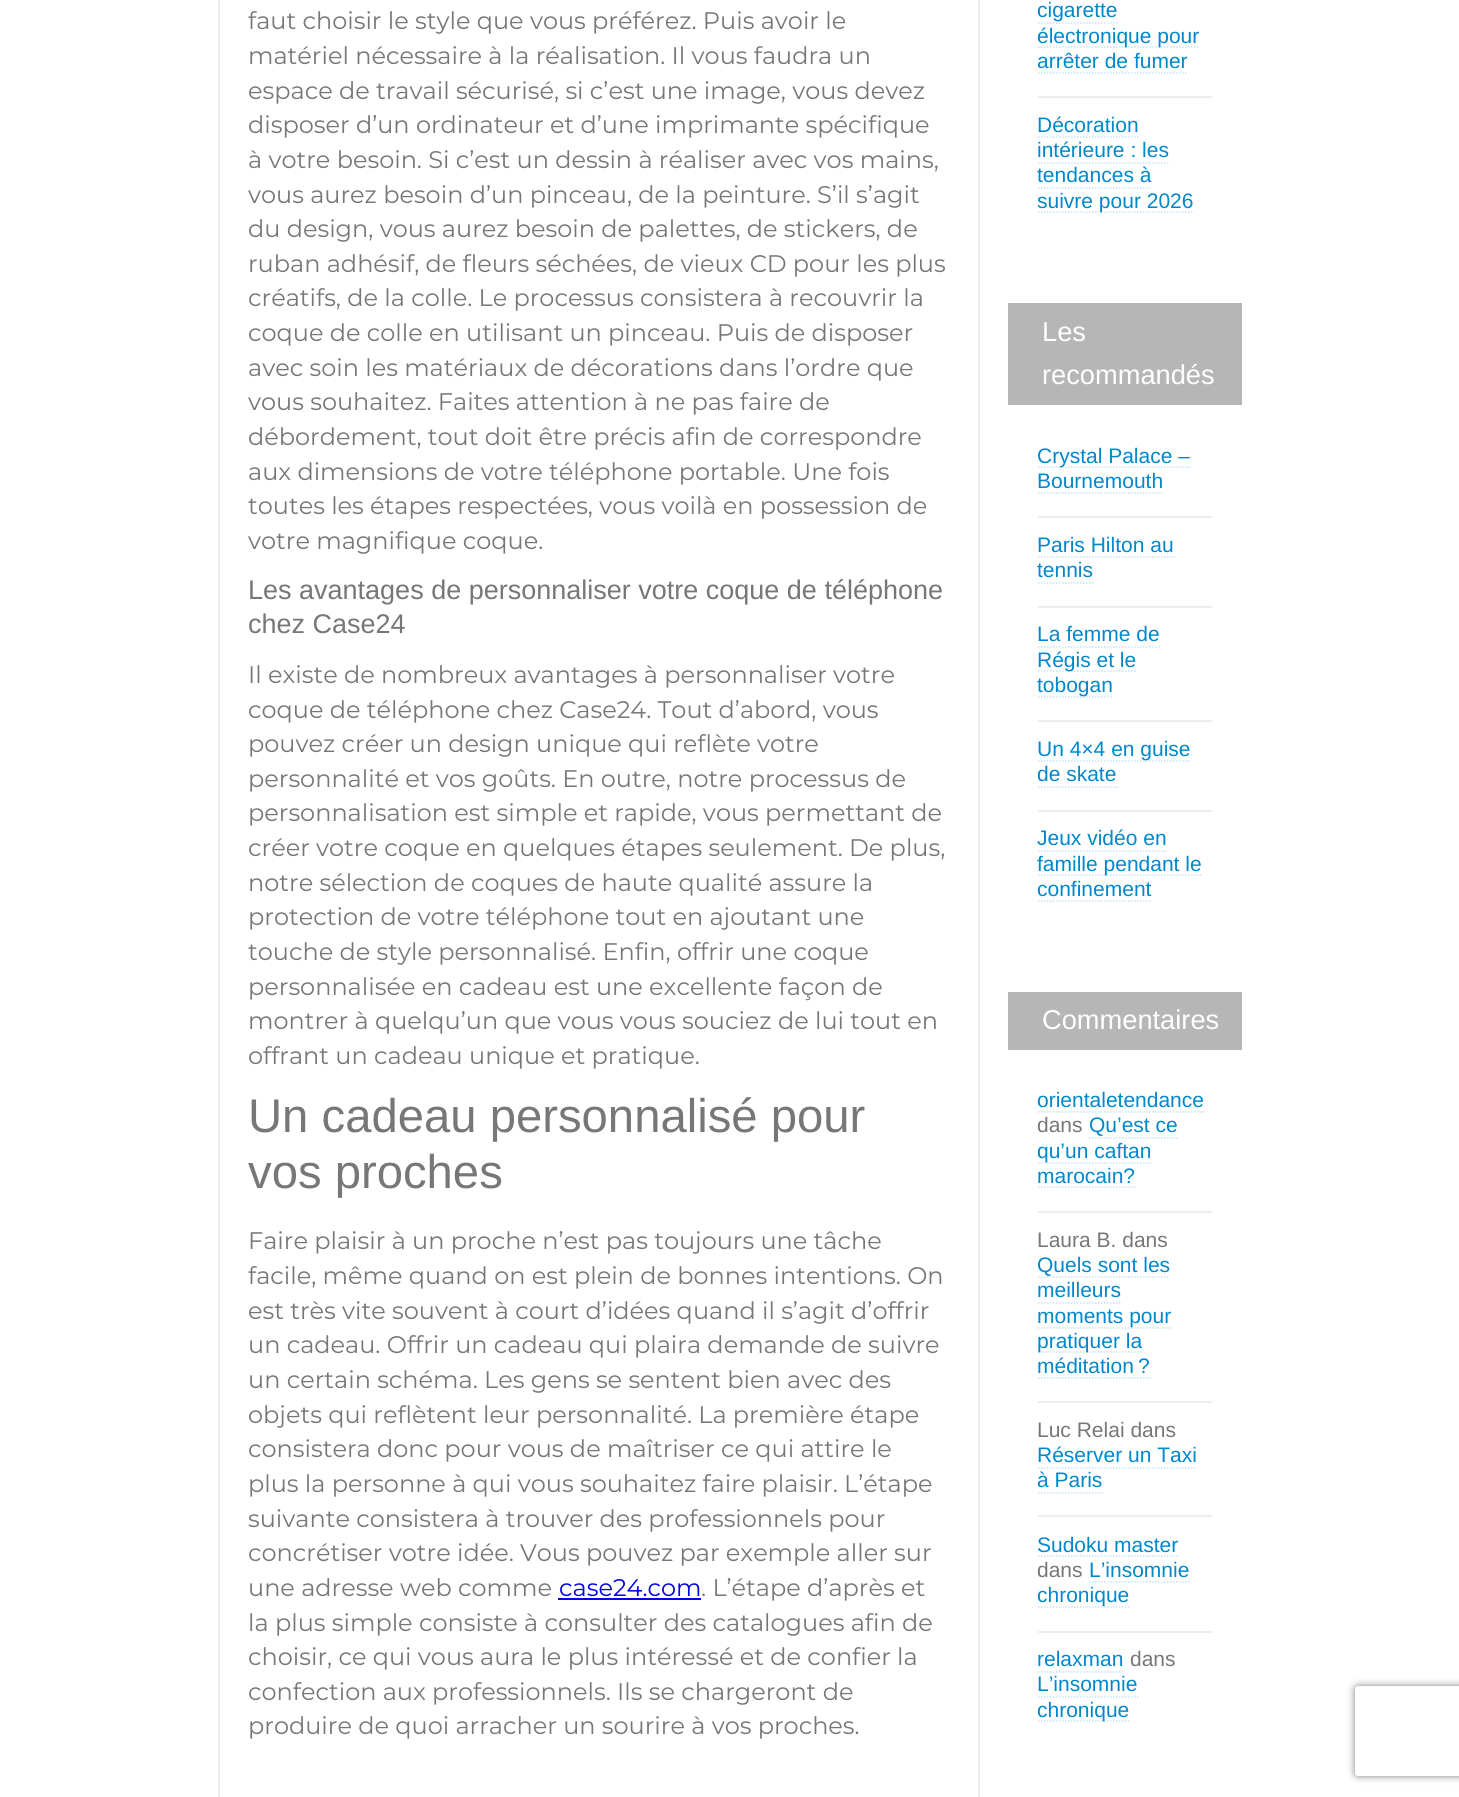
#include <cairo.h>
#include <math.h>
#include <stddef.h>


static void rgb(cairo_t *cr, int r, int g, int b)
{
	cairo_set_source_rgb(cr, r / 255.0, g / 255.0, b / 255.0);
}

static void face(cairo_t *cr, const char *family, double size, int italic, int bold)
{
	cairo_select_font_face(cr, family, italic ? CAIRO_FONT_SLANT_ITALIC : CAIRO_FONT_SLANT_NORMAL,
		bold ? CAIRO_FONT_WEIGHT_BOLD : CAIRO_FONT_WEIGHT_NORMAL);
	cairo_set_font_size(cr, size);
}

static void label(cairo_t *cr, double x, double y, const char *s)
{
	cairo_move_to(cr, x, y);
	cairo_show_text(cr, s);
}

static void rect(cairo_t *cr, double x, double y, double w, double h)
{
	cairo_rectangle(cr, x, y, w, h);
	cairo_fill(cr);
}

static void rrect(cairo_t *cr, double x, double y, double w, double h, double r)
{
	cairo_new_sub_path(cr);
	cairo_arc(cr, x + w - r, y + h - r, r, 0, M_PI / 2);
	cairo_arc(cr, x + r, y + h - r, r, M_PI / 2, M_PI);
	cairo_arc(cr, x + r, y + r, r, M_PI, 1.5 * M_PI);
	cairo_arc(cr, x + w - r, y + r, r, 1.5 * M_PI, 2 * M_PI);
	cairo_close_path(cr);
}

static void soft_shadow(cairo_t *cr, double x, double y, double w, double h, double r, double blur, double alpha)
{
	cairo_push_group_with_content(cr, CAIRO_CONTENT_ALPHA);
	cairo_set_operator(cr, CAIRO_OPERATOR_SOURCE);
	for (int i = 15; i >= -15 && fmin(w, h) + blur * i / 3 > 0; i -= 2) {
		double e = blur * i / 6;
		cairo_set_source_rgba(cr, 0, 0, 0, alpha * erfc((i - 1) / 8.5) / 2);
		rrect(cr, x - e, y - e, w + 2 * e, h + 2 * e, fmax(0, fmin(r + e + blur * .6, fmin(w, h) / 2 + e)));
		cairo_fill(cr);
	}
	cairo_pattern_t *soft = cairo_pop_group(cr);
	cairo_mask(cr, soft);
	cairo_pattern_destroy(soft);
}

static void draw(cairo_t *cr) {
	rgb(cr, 255, 255, 255);
	cairo_paint(cr);
	cairo_rectangle(cr, 219, -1, 760, 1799);
	rgb(cr, 234, 234, 234);
	cairo_stroke(cr);
	face(cr, "Montserrat", 24, 0, 0);
	rgb(cr, 119, 119, 119);
	label(cr, 248, 29, "faut choisir le style que vous préférez. Puis avoir le");
	label(cr, 248, 64, "matériel nécessaire à la réalisation. Il vous faudra un");
	label(cr, 248, 99, "espace de travail sécurisé, si c’est une image, vous devez");
	label(cr, 248, 133, "disposer d’un ordinateur et d’une imprimante spécifique");
	label(cr, 248, 168, "à votre besoin. Si c’est un dessin à réaliser avec vos mains,");
	label(cr, 248, 203, "vous aurez besoin d’un pinceau, de la peinture. S’il s’agit");
	label(cr, 248, 237, "du design, vous aurez besoin de palettes, de stickers, de");
	label(cr, 248, 272, "ruban adhésif, de fleurs séchées, de vieux CD pour les plus");
	label(cr, 248, 306, "créatifs, de la colle. Le processus consistera à recouvrir la");
	label(cr, 248, 341, "coque de colle en utilisant un pinceau. Puis de disposer");
	label(cr, 248, 376, "avec soin les matériaux de décorations dans l’ordre que");
	label(cr, 248, 410, "vous souhaitez. Faites attention à ne pas faire de");
	label(cr, 248, 445, "débordement, tout doit être précis afin de correspondre");
	label(cr, 248, 480, "aux dimensions de votre téléphone portable. Une fois");
	label(cr, 248, 514, "toutes les étapes respectées, vous voilà en possession de");
	label(cr, 248, 549, "votre magnifique coque.");
	face(cr, "Liberation Sans", 27, 0, 0);
	label(cr, 248, 599, "Les avantages de personnaliser votre coque de téléphone");
	label(cr, 248, 633, "chez Case24");
	face(cr, "Montserrat", 24, 0, 0);
	label(cr, 248, 683, "Il existe de nombreux avantages à personnaliser votre");
	label(cr, 248, 718, "coque de téléphone chez Case24. Tout d’abord, vous");
	label(cr, 248, 752, "pouvez créer un design unique qui reflète votre");
	label(cr, 248, 787, "personnalité et vos goûts. En outre, notre processus de");
	label(cr, 248, 821, "personnalisation est simple et rapide, vous permettant de");
	label(cr, 248, 856, "créer votre coque en quelques étapes seulement. De plus,");
	label(cr, 248, 891, "notre sélection de coques de haute qualité assure la");
	label(cr, 248, 925, "protection de votre téléphone tout en ajoutant une");
	label(cr, 248, 960, "touche de style personnalisé. Enfin, offrir une coque");
	label(cr, 248, 995, "personnalisée en cadeau est une excellente façon de");
	label(cr, 248, 1029, "montrer à quelqu’un que vous vous souciez de lui tout en");
	label(cr, 248, 1064, "offrant un cadeau unique et pratique.");
	face(cr, "Liberation Sans", 47.25, 0, 0);
	label(cr, 248, 1132, "Un cadeau personnalisé pour");
	label(cr, 248, 1188, "vos proches");
	face(cr, "Montserrat", 24, 0, 0);
	label(cr, 248, 1249, "Faire plaisir à un proche n’est pas toujours une tâche");
	label(cr, 248, 1284, "facile, même quand on est plein de bonnes intentions. On");
	label(cr, 248, 1319, "est très vite souvent à court d’idées quand il s’agit d’offrir");
	label(cr, 248, 1353, "un cadeau. Offrir un cadeau qui plaira demande de suivre");
	label(cr, 248, 1388, "un certain schéma. Les gens se sentent bien avec des");
	label(cr, 248, 1423, "objets qui reflètent leur personnalité. La première étape");
	label(cr, 248, 1457, "consistera donc pour vous de maîtriser ce qui attire le");
	label(cr, 248, 1492, "plus la personne à qui vous souhaitez faire plaisir. L’étape");
	label(cr, 248, 1527, "suivante consistera à trouver des professionnels pour");
	label(cr, 248, 1561, "concrétiser votre idée. Vous pouvez par exemple aller sur");
	label(cr, 248, 1596, "une adresse web comme");
	rgb(cr, 0, 0, 238);
	label(cr, 559, 1596, "case24.com");
	rect(cr, 558, 1598, 143, 2);
	rgb(cr, 119, 119, 119);
	label(cr, 701, 1596, ". L’étape d’après et");
	label(cr, 248, 1631, "la plus simple consiste à consulter des catalogues afin de");
	label(cr, 248, 1665, "choisir, ce qui vous aura le plus intéressé et de confier la");
	label(cr, 248, 1700, "confection aux professionnels. Ils se chargeront de");
	label(cr, 248, 1734, "produire de quoi arracher un sourire à vos proches.");
	rgb(cr, 237, 237, 237);
	rect(cr, 1038, 96, 174, 2);
	face(cr, "Liberation Sans", 21, 0, 0);
	rgb(cr, 0, 136, 204);
	label(cr, 1037, 17, "cigarette");
	cairo_new_path(cr);
	cairo_move_to(cr, 1038, 23);
	cairo_line_to(cr, 1117.5, 23);
	rgb(cr, 197, 229, 244);
	cairo_set_line_width(cr, 1.5);
	cairo_set_dash(cr, (double[]){1.5, 1.5}, 2, 0);
	cairo_stroke(cr);
	cairo_new_path(cr);
	cairo_move_to(cr, 1038, 47);
	cairo_line_to(cr, 1200, 47);
	cairo_stroke(cr);
	rgb(cr, 0, 136, 204);
	label(cr, 1037, 43, "électronique pour");
	label(cr, 1037, 68, "arrêter de fumer");
	cairo_new_path(cr);
	cairo_move_to(cr, 1038, 73);
	cairo_line_to(cr, 1188, 73);
	rgb(cr, 197, 229, 244);
	cairo_stroke(cr);
	rgb(cr, 0, 136, 204);
	label(cr, 1037, 132, "Décoration");
	cairo_new_path(cr);
	cairo_move_to(cr, 1038, 137);
	cairo_line_to(cr, 1138.5, 137);
	rgb(cr, 197, 229, 244);
	cairo_stroke(cr);
	rgb(cr, 0, 136, 204);
	label(cr, 1037, 157, "intérieure : les");
	label(cr, 1037, 182, "tendances à");
	cairo_new_path(cr);
	cairo_move_to(cr, 1038, 163);
	cairo_line_to(cr, 1170, 163);
	rgb(cr, 197, 229, 244);
	cairo_stroke(cr);
	cairo_new_path(cr);
	cairo_move_to(cr, 1038, 188);
	cairo_line_to(cr, 1152, 188);
	cairo_stroke(cr);
	cairo_new_path(cr);
	cairo_move_to(cr, 1038, 212);
	cairo_line_to(cr, 1194, 212);
	cairo_stroke(cr);
	rgb(cr, 0, 136, 204);
	label(cr, 1037, 208, "suivre pour 2026");
	rgb(cr, 182, 182, 182);
	rect(cr, 1008, 303, 234, 102);
	face(cr, "Liberation Sans", 27.25, 0, 0);
	rgb(cr, 255, 255, 255);
	label(cr, 1042, 341, "Les");
	label(cr, 1042, 384, "recommandés");
	rgb(cr, 237, 237, 237);
	rect(cr, 1038, 516, 174, 2);
	cairo_new_path(cr);
	cairo_move_to(cr, 1038, 467);
	cairo_line_to(cr, 1191, 467);
	rgb(cr, 197, 229, 244);
	cairo_stroke(cr);
	face(cr, "Liberation Sans", 21, 0, 0);
	rgb(cr, 0, 136, 204);
	label(cr, 1037, 463, "Crystal Palace –");
	label(cr, 1037, 488, "Bournemouth");
	cairo_new_path(cr);
	cairo_move_to(cr, 1038, 493);
	cairo_line_to(cr, 1164, 493);
	rgb(cr, 197, 229, 244);
	cairo_stroke(cr);
	rgb(cr, 237, 237, 237);
	rect(cr, 1038, 606, 174, 2);
	rgb(cr, 0, 136, 204);
	label(cr, 1037, 552, "Paris Hilton au");
	cairo_new_path(cr);
	cairo_move_to(cr, 1038, 557);
	cairo_line_to(cr, 1174.5, 557);
	rgb(cr, 197, 229, 244);
	cairo_stroke(cr);
	rgb(cr, 0, 136, 204);
	label(cr, 1037, 577, "tennis");
	cairo_new_path(cr);
	cairo_move_to(cr, 1038, 583);
	cairo_line_to(cr, 1093.5, 583);
	rgb(cr, 197, 229, 244);
	cairo_stroke(cr);
	rgb(cr, 237, 237, 237);
	rect(cr, 1038, 720, 174, 2);
	rgb(cr, 0, 136, 204);
	label(cr, 1037, 641, "La femme de");
	cairo_new_path(cr);
	cairo_move_to(cr, 1038, 647);
	cairo_line_to(cr, 1159.5, 647);
	rgb(cr, 197, 229, 244);
	cairo_stroke(cr);
	cairo_new_path(cr);
	cairo_move_to(cr, 1038, 671);
	cairo_line_to(cr, 1137, 671);
	cairo_stroke(cr);
	rgb(cr, 0, 136, 204);
	label(cr, 1037, 667, "Régis et le");
	cairo_new_path(cr);
	cairo_move_to(cr, 1038, 697);
	cairo_line_to(cr, 1113, 697);
	rgb(cr, 197, 229, 244);
	cairo_stroke(cr);
	rgb(cr, 0, 136, 204);
	label(cr, 1037, 692, "tobogan");
	rgb(cr, 237, 237, 237);
	rect(cr, 1038, 810, 174, 2);
	cairo_new_path(cr);
	cairo_move_to(cr, 1038, 761);
	cairo_line_to(cr, 1191, 761);
	rgb(cr, 197, 229, 244);
	cairo_stroke(cr);
	rgb(cr, 0, 136, 204);
	label(cr, 1037, 756, "Un 4×4 en guise");
	label(cr, 1037, 781, "de skate");
	cairo_new_path(cr);
	cairo_move_to(cr, 1038, 787);
	cairo_line_to(cr, 1117.5, 787);
	rgb(cr, 197, 229, 244);
	cairo_stroke(cr);
	rgb(cr, 0, 136, 204);
	label(cr, 1037, 845, "Jeux vidéo en");
	cairo_new_path(cr);
	cairo_move_to(cr, 1038, 851);
	cairo_line_to(cr, 1167, 851);
	rgb(cr, 197, 229, 244);
	cairo_stroke(cr);
	cairo_new_path(cr);
	cairo_move_to(cr, 1038, 875);
	cairo_line_to(cr, 1201.5, 875);
	cairo_stroke(cr);
	rgb(cr, 0, 136, 204);
	label(cr, 1037, 871, "famille pendant le");
	label(cr, 1037, 896, "confinement");
	cairo_new_path(cr);
	cairo_move_to(cr, 1038, 901);
	cairo_line_to(cr, 1152, 901);
	rgb(cr, 197, 229, 244);
	cairo_stroke(cr);
	rgb(cr, 182, 182, 182);
	rect(cr, 1008, 992, 234, 58);
	face(cr, "Liberation Sans", 27.25, 0, 0);
	rgb(cr, 255, 255, 255);
	label(cr, 1042, 1029, "Commentaires");
	rgb(cr, 237, 237, 237);
	rect(cr, 1038, 1211, 174, 2);
	face(cr, "Liberation Sans", 21, 0, 0);
	rgb(cr, 0, 136, 204);
	label(cr, 1037, 1107, "orientaletendance");
	cairo_new_path(cr);
	cairo_move_to(cr, 1038, 1112);
	cairo_line_to(cr, 1204.5, 1112);
	rgb(cr, 197, 229, 244);
	cairo_stroke(cr);
	rgb(cr, 119, 119, 119);
	label(cr, 1037, 1132, "dans");
	rgb(cr, 0, 136, 204);
	label(cr, 1089, 1132, "Qu’est ce");
	cairo_new_path(cr);
	cairo_move_to(cr, 1089, 1138);
	cairo_line_to(cr, 1177.5, 1138);
	rgb(cr, 197, 229, 244);
	cairo_stroke(cr);
	cairo_new_path(cr);
	cairo_move_to(cr, 1038, 1163);
	cairo_line_to(cr, 1152, 1163);
	cairo_stroke(cr);
	rgb(cr, 0, 136, 204);
	label(cr, 1037, 1158, "qu’un caftan");
	label(cr, 1037, 1183, "marocain?");
	cairo_new_path(cr);
	cairo_move_to(cr, 1038, 1187);
	cairo_line_to(cr, 1135.5, 1187);
	rgb(cr, 197, 229, 244);
	cairo_stroke(cr);
	rgb(cr, 237, 237, 237);
	rect(cr, 1038, 1401, 174, 2);
	rgb(cr, 119, 119, 119);
	label(cr, 1037, 1247, "Laura B. dans");
	rgb(cr, 0, 136, 204);
	label(cr, 1037, 1272, "Quels sont les");
	cairo_new_path(cr);
	cairo_move_to(cr, 1038, 1277);
	cairo_line_to(cr, 1170, 1277);
	rgb(cr, 197, 229, 244);
	cairo_stroke(cr);
	rgb(cr, 0, 136, 204);
	label(cr, 1037, 1297, "meilleurs");
	cairo_new_path(cr);
	cairo_move_to(cr, 1038, 1303);
	cairo_line_to(cr, 1122, 1303);
	rgb(cr, 197, 229, 244);
	cairo_stroke(cr);
	cairo_new_path(cr);
	cairo_move_to(cr, 1038, 1328);
	cairo_line_to(cr, 1171.5, 1328);
	cairo_stroke(cr);
	rgb(cr, 0, 136, 204);
	label(cr, 1037, 1323, "moments pour");
	cairo_new_path(cr);
	cairo_move_to(cr, 1038, 1352);
	cairo_line_to(cr, 1143, 1352);
	rgb(cr, 197, 229, 244);
	cairo_stroke(cr);
	rgb(cr, 0, 136, 204);
	label(cr, 1037, 1348, "pratiquer la");
	label(cr, 1037, 1373, "méditation ?");
	cairo_new_path(cr);
	cairo_move_to(cr, 1038, 1378);
	cairo_line_to(cr, 1150.5, 1378);
	rgb(cr, 197, 229, 244);
	cairo_stroke(cr);
	rgb(cr, 237, 237, 237);
	rect(cr, 1038, 1515, 174, 2);
	rgb(cr, 119, 119, 119);
	label(cr, 1037, 1437, "Luc Relai dans");
	rgb(cr, 0, 136, 204);
	label(cr, 1037, 1462, "Réserver un Taxi");
	label(cr, 1037, 1487, "à Paris");
	cairo_new_path(cr);
	cairo_move_to(cr, 1038, 1468);
	cairo_line_to(cr, 1197, 1468);
	rgb(cr, 197, 229, 244);
	cairo_stroke(cr);
	cairo_new_path(cr);
	cairo_move_to(cr, 1038, 1493);
	cairo_line_to(cr, 1102.5, 1493);
	cairo_stroke(cr);
	rgb(cr, 237, 237, 237);
	rect(cr, 1038, 1631, 174, 2);
	rgb(cr, 0, 136, 204);
	label(cr, 1037, 1552, "Sudoku master");
	cairo_new_path(cr);
	cairo_move_to(cr, 1038, 1556);
	cairo_line_to(cr, 1179, 1556);
	rgb(cr, 197, 229, 244);
	cairo_stroke(cr);
	rgb(cr, 119, 119, 119);
	label(cr, 1037, 1577, "dans");
	rgb(cr, 0, 136, 204);
	label(cr, 1089, 1577, "L’insomnie");
	cairo_new_path(cr);
	cairo_move_to(cr, 1089, 1582);
	cairo_line_to(cr, 1189.5, 1582);
	rgb(cr, 197, 229, 244);
	cairo_stroke(cr);
	cairo_new_path(cr);
	cairo_move_to(cr, 1038, 1607);
	cairo_line_to(cr, 1129.5, 1607);
	cairo_stroke(cr);
	rgb(cr, 0, 136, 204);
	label(cr, 1037, 1602, "chronique");
	label(cr, 1037, 1666, "relaxman");
	cairo_new_path(cr);
	cairo_move_to(cr, 1038, 1672);
	cairo_line_to(cr, 1123.5, 1672);
	rgb(cr, 197, 229, 244);
	cairo_stroke(cr);
	rgb(cr, 119, 119, 119);
	label(cr, 1130, 1666, "dans");
	rgb(cr, 0, 136, 204);
	label(cr, 1037, 1691, "L’insomnie");
	cairo_new_path(cr);
	cairo_move_to(cr, 1038, 1697);
	cairo_line_to(cr, 1138.5, 1697);
	rgb(cr, 197, 229, 244);
	cairo_stroke(cr);
	cairo_new_path(cr);
	cairo_move_to(cr, 1038, 1721);
	cairo_line_to(cr, 1129.5, 1721);
	cairo_stroke(cr);
	rgb(cr, 0, 136, 204);
	label(cr, 1037, 1717, "chronique");
	cairo_save(cr);
	cairo_set_fill_rule(cr, CAIRO_FILL_RULE_EVEN_ODD);
	cairo_new_path(cr);
	cairo_move_to(cr, 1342, 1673);
	cairo_line_to(cr, 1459, 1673);
	cairo_line_to(cr, 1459, 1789);
	cairo_line_to(cr, 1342, 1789);
	cairo_close_path(cr);
	cairo_move_to(cr, 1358, 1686);
	cairo_line_to(cr, 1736, 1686);
	cairo_curve_to(cr, 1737.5, 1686, 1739, 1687.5, 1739, 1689);
	cairo_line_to(cr, 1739, 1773);
	cairo_curve_to(cr, 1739, 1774.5, 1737.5, 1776, 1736, 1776);
	cairo_line_to(cr, 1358, 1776);
	cairo_curve_to(cr, 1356.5, 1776, 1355, 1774.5, 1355, 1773);
	cairo_line_to(cr, 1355, 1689);
	cairo_curve_to(cr, 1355, 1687.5, 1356.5, 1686, 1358, 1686);
	cairo_close_path(cr);
	cairo_clip(cr);
	rgb(cr, 128, 128, 128);
	soft_shadow(cr, 1355, 1686, 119, 90, 3, 4, 1);
	cairo_restore(cr);
}

int main(void) {
	cairo_surface_t *surface = cairo_image_surface_create(CAIRO_FORMAT_RGB24, 1459, 1797);
	cairo_t *cr = cairo_create(surface);
	cairo_font_options_t *options = cairo_font_options_create();
	cairo_font_options_set_hint_metrics(options, CAIRO_HINT_METRICS_OFF);
	cairo_font_options_set_hint_style(options, CAIRO_HINT_STYLE_NONE);
	cairo_set_font_options(cr, options);
	cairo_set_miter_limit(cr, 4);
	draw(cr);
	cairo_surface_write_to_png(surface, "render.png");
	cairo_font_options_destroy(options);
	cairo_destroy(cr);
	cairo_surface_destroy(surface);
	return 0;
}
